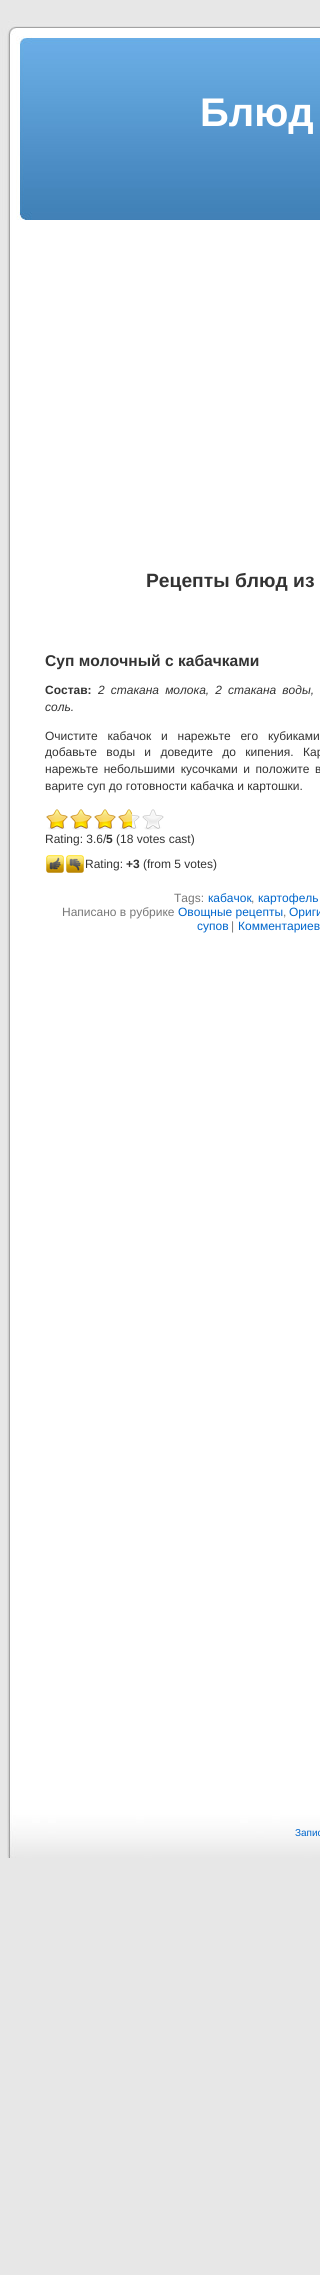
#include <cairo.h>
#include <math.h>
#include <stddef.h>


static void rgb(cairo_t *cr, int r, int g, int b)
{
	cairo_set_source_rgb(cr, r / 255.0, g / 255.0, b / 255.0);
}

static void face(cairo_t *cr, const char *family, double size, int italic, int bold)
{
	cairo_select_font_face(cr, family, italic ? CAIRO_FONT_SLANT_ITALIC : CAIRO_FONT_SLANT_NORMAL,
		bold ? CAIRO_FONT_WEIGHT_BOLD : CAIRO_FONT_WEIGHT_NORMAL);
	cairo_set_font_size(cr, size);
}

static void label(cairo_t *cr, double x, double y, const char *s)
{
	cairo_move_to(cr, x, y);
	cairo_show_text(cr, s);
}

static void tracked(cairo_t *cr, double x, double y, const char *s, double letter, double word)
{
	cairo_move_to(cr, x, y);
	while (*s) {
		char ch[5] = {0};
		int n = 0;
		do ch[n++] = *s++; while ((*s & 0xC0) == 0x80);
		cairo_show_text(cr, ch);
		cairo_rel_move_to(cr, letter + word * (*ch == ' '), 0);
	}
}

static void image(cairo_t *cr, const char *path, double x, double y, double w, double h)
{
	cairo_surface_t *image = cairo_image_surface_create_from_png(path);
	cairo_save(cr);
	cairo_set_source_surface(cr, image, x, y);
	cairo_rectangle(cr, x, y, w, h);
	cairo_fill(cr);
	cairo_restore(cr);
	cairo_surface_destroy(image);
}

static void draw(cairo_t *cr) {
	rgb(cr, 231, 231, 231);
	cairo_paint(cr);
	image(cr, "image0.png", 7, 220, 313, 1587);
	image(cr, "image1.png", 1, 20, 319, 200);
	face(cr, "Liberation Sans", 40, 0, 1);
	rgb(cr, 255, 255, 255);
	label(cr, 200, 126, "Блюд");
	face(cr, "Liberation Sans", 19.25, 0, 1);
	rgb(cr, 51, 51, 51);
	label(cr, 146, 587, "Рецепты блюд из");
	face(cr, "Liberation Sans", 15.6, 0, 1);
	label(cr, 45, 666, "Суп молочный с кабачками");
	face(cr, "Liberation Sans", 12, 0, 1);
	label(cr, 45, 694, "Состав:");
	face(cr, "Liberation Sans", 12, 1, 0);
	tracked(cr, 98, 694, "2 стакана молока, 2 стакана воды,", 0, 2.75);
	label(cr, 45, 711, "соль.");
	face(cr, "Liberation Sans", 12, 0, 0);
	tracked(cr, 45, 740, "Очистите кабачок и нарежьте его кубиками", 0, 6.5);
	tracked(cr, 45, 756, "добавьте воды и доведите до кипения. Кар", 0, 6);
	tracked(cr, 45, 773, "нарежьте небольшими кусочками и положите в", 0, 2.25);
	label(cr, 45, 790, "варите суп до готовности кабачка и картошки.");
	image(cr, "image2.png", 46, 809, 118, 21);
	image(cr, "image3.png", 46, 809, 86, 20);
	label(cr, 45, 843, "Rating: 3.6/");
	face(cr, "Liberation Sans", 12, 0, 1);
	label(cr, 106, 843, "5");
	face(cr, "Liberation Sans", 12, 0, 0);
	label(cr, 116, 843, "(18 votes cast)");
	image(cr, "image4.png", 46, 855, 18, 18);
	image(cr, "image5.png", 66, 855, 18, 18);
	label(cr, 85, 868, "Rating:");
	face(cr, "Liberation Sans", 12, 0, 1);
	label(cr, 126, 868, "+3");
	face(cr, "Liberation Sans", 12, 0, 0);
	label(cr, 143, 868, "(from 5 votes)");
	rgb(cr, 119, 119, 119);
	label(cr, 174, 902, "Tags:");
	rgb(cr, 0, 102, 204);
	label(cr, 208, 902, "кабачок");
	rgb(cr, 119, 119, 119);
	label(cr, 251, 902, ",");
	rgb(cr, 0, 102, 204);
	label(cr, 258, 902, "картофель");
	rgb(cr, 119, 119, 119);
	label(cr, 62, 916, "Написано в рубрике");
	rgb(cr, 0, 102, 204);
	label(cr, 178, 916, "Овощные рецепты");
	rgb(cr, 119, 119, 119);
	label(cr, 283, 916, ",");
	rgb(cr, 0, 102, 204);
	label(cr, 289, 916, "Ориги");
	label(cr, 197, 930, "супов");
	rgb(cr, 119, 119, 119);
	label(cr, 231, 930, "|");
	rgb(cr, 0, 102, 204);
	label(cr, 238, 930, "Комментариев");
	image(cr, "image6.png", 7, 1807, 313, 51);
	face(cr, "Liberation Sans", 10, 0, 0);
	label(cr, 295, 1836, "Запис");
}

int main(void) {
	cairo_surface_t *surface = cairo_image_surface_create(CAIRO_FORMAT_RGB24, 320, 2275);
	cairo_t *cr = cairo_create(surface);
	cairo_font_options_t *options = cairo_font_options_create();
	cairo_font_options_set_hint_metrics(options, CAIRO_HINT_METRICS_OFF);
	cairo_font_options_set_hint_style(options, CAIRO_HINT_STYLE_NONE);
	cairo_set_font_options(cr, options);
	cairo_set_miter_limit(cr, 4);
	draw(cr);
	cairo_surface_write_to_png(surface, "render.png");
	cairo_font_options_destroy(options);
	cairo_destroy(cr);
	cairo_surface_destroy(surface);
	return 0;
}
